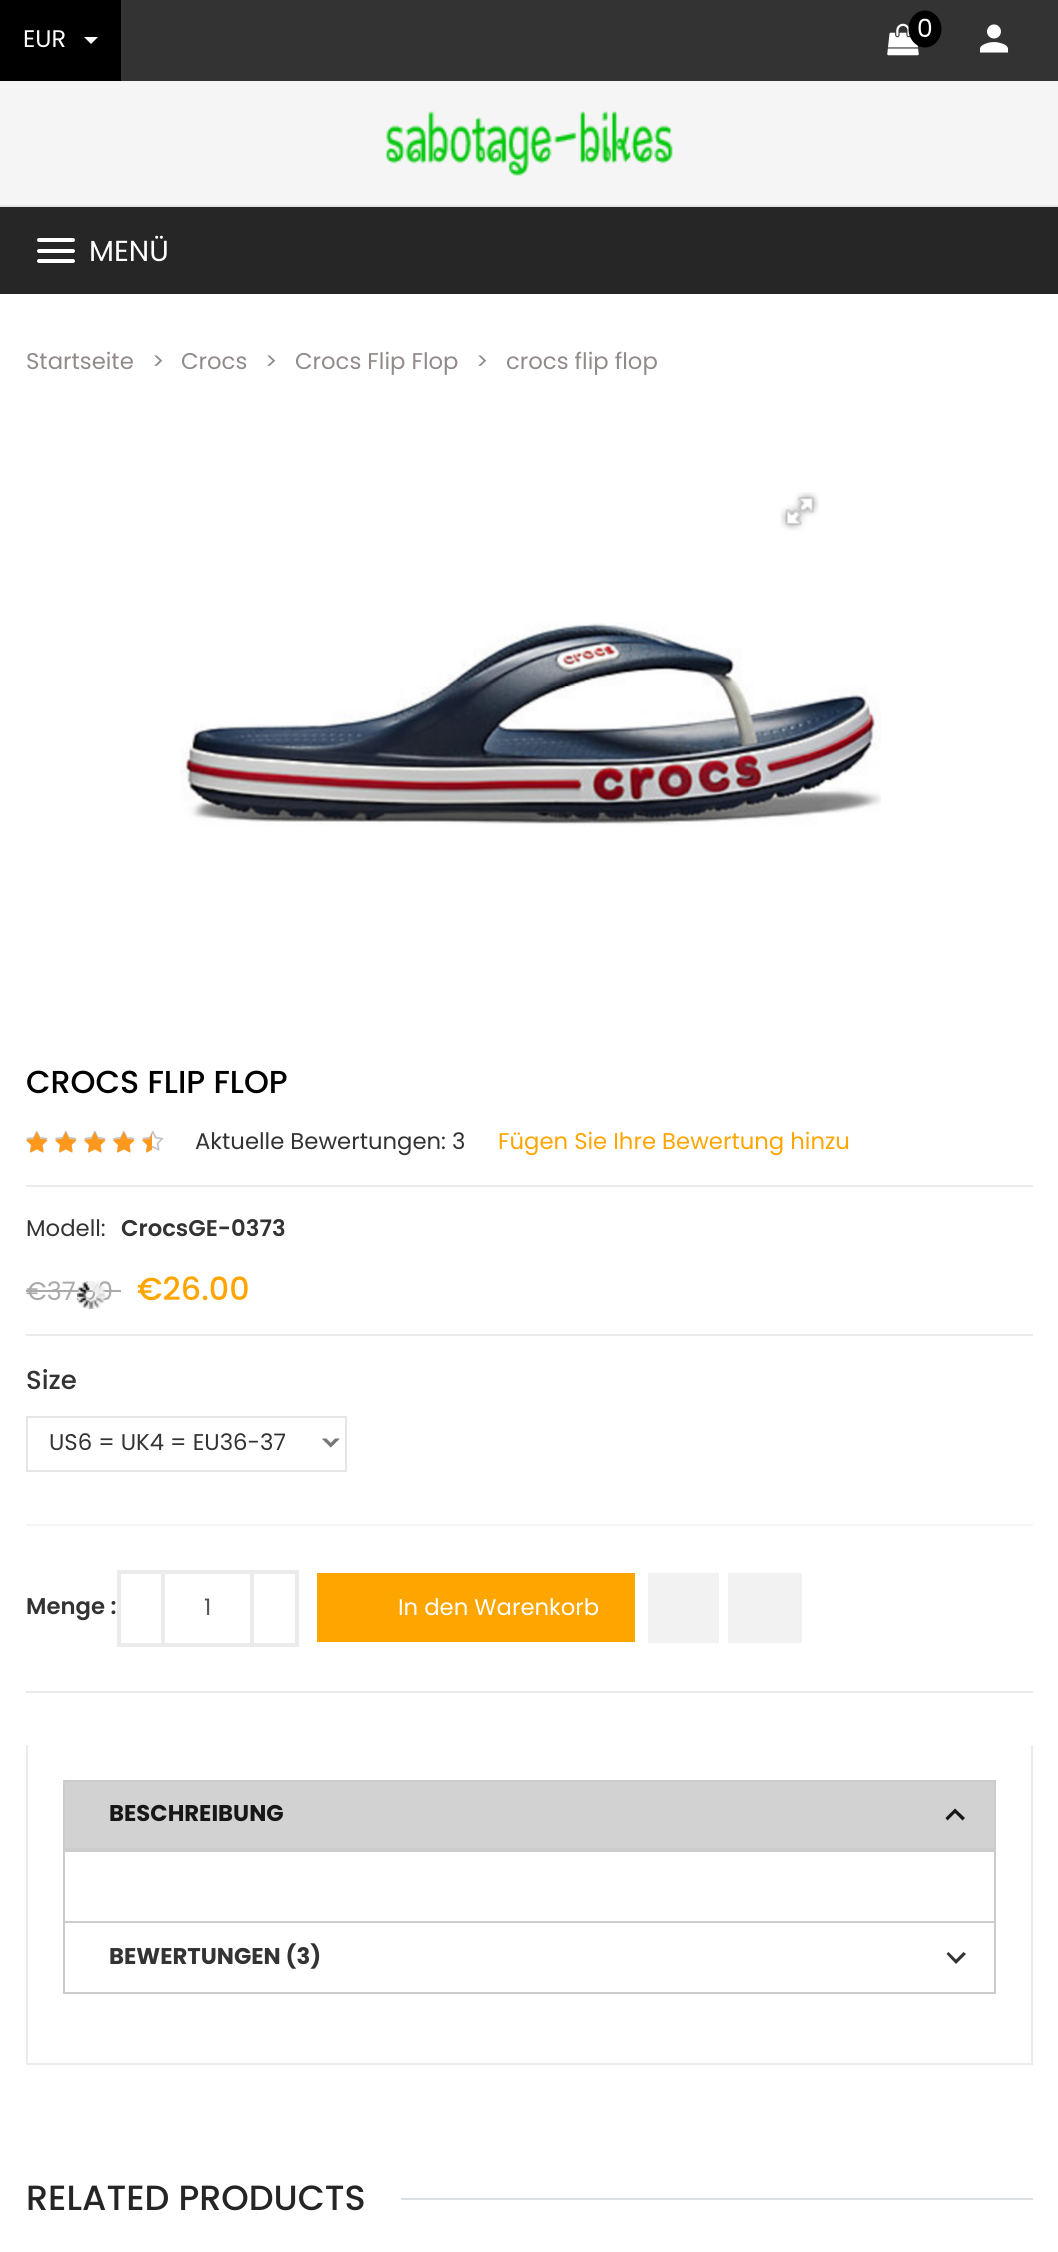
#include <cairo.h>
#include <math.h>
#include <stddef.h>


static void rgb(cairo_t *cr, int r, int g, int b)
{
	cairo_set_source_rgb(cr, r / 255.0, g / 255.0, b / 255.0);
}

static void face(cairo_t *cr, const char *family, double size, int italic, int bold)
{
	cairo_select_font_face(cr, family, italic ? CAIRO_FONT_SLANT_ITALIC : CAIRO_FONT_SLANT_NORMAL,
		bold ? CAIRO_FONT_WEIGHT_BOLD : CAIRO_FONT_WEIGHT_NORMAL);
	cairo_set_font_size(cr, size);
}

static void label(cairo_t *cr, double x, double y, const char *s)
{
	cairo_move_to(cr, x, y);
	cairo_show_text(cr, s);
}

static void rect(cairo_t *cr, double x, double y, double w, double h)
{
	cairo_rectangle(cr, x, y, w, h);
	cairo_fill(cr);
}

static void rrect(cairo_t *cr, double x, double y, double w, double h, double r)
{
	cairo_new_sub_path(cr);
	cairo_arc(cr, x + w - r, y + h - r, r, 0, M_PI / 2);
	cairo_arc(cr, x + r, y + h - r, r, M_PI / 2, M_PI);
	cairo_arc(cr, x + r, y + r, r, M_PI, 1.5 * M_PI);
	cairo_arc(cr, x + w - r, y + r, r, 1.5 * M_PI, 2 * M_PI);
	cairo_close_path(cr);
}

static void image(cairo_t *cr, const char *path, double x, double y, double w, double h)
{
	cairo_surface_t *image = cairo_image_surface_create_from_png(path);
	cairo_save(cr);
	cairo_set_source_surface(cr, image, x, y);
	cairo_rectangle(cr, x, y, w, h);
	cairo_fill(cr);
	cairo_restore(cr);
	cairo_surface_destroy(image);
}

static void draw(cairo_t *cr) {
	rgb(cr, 255, 255, 255);
	cairo_paint(cr);
	rgb(cr, 51, 51, 51);
	rect(cr, 121, 0, 937, 81);
	rgb(cr, 0, 0, 0);
	rect(cr, 0, 0, 121, 81);
	face(cr, "Poppins", 24, 0, 0);
	rgb(cr, 255, 255, 255);
	label(cr, 23, 47, "EUR");
	cairo_new_path(cr);
	cairo_move_to(cr, 84, 37);
	cairo_line_to(cr, 98, 37);
	cairo_line_to(cr, 91, 44);
	cairo_close_path(cr);
	cairo_fill(cr);
	image(cr, "image0.png", 887, 23, 32, 33);
	rgb(cr, 0, 0, 0);
	cairo_new_path(cr);
	cairo_move_to(cr, 925, 10.5);
	cairo_curve_to(cr, 934, 10.5, 941.5, 19, 941.5, 29);
	cairo_curve_to(cr, 941.5, 39, 934, 47.5, 925, 47.5);
	cairo_curve_to(cr, 916, 47.5, 908.5, 39, 908.5, 29);
	cairo_curve_to(cr, 908.5, 19, 916, 10.5, 925, 10.5);
	cairo_close_path(cr);
	cairo_fill(cr);
	face(cr, "Poppins", 25, 0, 0);
	rgb(cr, 255, 255, 255);
	label(cr, 917, 37, "0");
	image(cr, "image1.png", 979, 24, 30, 29);
	rgb(cr, 245, 245, 245);
	rect(cr, 0, 81, 1058, 124);
	rgb(cr, 229, 229, 229);
	rect(cr, 0, 205, 1058, 2);
	image(cr, "image2.png", 385, 111, 288, 65);
	rgb(cr, 38, 38, 38);
	rect(cr, 0, 207, 1058, 87);
	rgb(cr, 255, 255, 255);
	rrect(cr, 37, 238, 38, 4, 2);
	cairo_fill(cr);
	face(cr, "Poppins", 29, 0, 0);
	label(cr, 89, 261, "MENÜ");
	rrect(cr, 37, 249, 38, 4, 2);
	cairo_fill(cr);
	rrect(cr, 37, 259, 38, 4, 2);
	cairo_fill(cr);
	face(cr, "Poppins", 22.75, 0, 0);
	rgb(cr, 146, 137, 137);
	label(cr, 26, 369, "Startseite");
	label(cr, 152, 369, ">");
	label(cr, 181, 369, "Crocs");
	label(cr, 265, 369, ">");
	label(cr, 295, 369, "Crocs Flip Flop");
	label(cr, 476, 369, ">");
	label(cr, 506, 369, "crocs flip flop");
	image(cr, "image3.png", 780, 492, 39, 39);
	image(cr, "image4.png", 180, 622, 701, 204);
	face(cr, "Poppins Medium", 31.75, 0, 0);
	rgb(cr, 0, 0, 0);
	label(cr, 26, 1093, "CROCS FLIP FLOP");
	image(cr, "image5.png", 26, 1130, 138, 21);
	image(cr, "image6.png", 26, 1132, 126, 21);
	face(cr, "Poppins", 22.75, 0, 0);
	rgb(cr, 51, 51, 51);
	label(cr, 195, 1149, "Aktuelle Bewertungen: 3");
	rgb(cr, 255, 165, 0);
	label(cr, 498, 1149, "Fügen Sie Ihre Bewertung hinzu");
	rgb(cr, 235, 235, 235);
	rect(cr, 26, 1185, 1007, 2);
	rect(cr, 26, 1334, 1007, 2);
	rgb(cr, 51, 51, 51);
	label(cr, 26, 1236, "Modell:");
	face(cr, "Poppins SemiBold", 22.75, 0, 0);
	label(cr, 121, 1236, "CrocsGE-0373");
	face(cr, "Poppins", 25.5, 0, 0);
	rgb(cr, 170, 170, 170);
	label(cr, 26, 1300, "€37.00");
	rect(cr, 26, 1290, 95, 2);
	face(cr, "Poppins Medium", 31.75, 0, 0);
	rgb(cr, 255, 165, 0);
	label(cr, 137, 1300, "€26.00");
	image(cr, "image7.png", 77, 1281, 28, 28);
	rgb(cr, 245, 245, 245);
	rect(cr, 26, 1524, 1007, 2);
	face(cr, "Poppins Medium", 26, 0, 0);
	rgb(cr, 51, 51, 51);
	label(cr, 26, 1389, "Size");
	image(cr, "image8.png", 322, 1438, 18, 10);
	cairo_rectangle(cr, 27, 1417, 319, 54);
	rgb(cr, 229, 229, 229);
	cairo_stroke(cr);
	face(cr, "Poppins", 22.75, 0, 0);
	rgb(cr, 51, 51, 51);
	label(cr, 49, 1450, "US6 = UK4 = EU36-37");
	face(cr, "Poppins SemiBold", 22.75, 0, 0);
	label(cr, 26, 1614, "Menge :");
	cairo_rectangle(cr, 119, 1572, 178, 73);
	rgb(cr, 235, 235, 235);
	cairo_set_line_width(cr, 4);
	cairo_stroke(cr);
	rect(cr, 161, 1573, 4, 70);
	face(cr, "Poppins", 22.75, 0, 0);
	rgb(cr, 85, 85, 85);
	label(cr, 204, 1615, "1");
	rgb(cr, 235, 235, 235);
	rect(cr, 250, 1573, 4, 70);
	rgb(cr, 255, 165, 0);
	rect(cr, 317, 1573, 318, 69);
	rgb(cr, 255, 255, 255);
	label(cr, 398, 1615, "In den Warenkorb");
	rgb(cr, 242, 242, 242);
	rect(cr, 648, 1573, 71, 70);
	rect(cr, 728, 1573, 74, 70);
	rgb(cr, 235, 235, 235);
	rect(cr, 26, 1691, 1007, 2);
	rect(cr, 1031, 1745, 2, 320);
	rect(cr, 26, 2063, 1007, 2);
	rect(cr, 26, 1745, 2, 320);
	rgb(cr, 210, 210, 210);
	cairo_rectangle(cr, 64, 1781, 931, 68);
	cairo_fill_preserve(cr);
	rgb(cr, 204, 204, 204);
	cairo_set_line_width(cr, 2);
	cairo_stroke(cr);
	face(cr, "Poppins", 22.75, 0, 1);
	rgb(cr, 24, 23, 23);
	label(cr, 109, 1821, "BESCHREIBUNG");
	cairo_new_path(cr);
	cairo_move_to(cr, 962.5, 1820.5);
	cairo_line_to(cr, 955, 1813);
	cairo_line_to(cr, 947.5, 1820.5);
	cairo_line_to(cr, 945.5, 1818);
	cairo_line_to(cr, 955, 1808.5);
	cairo_line_to(cr, 965, 1818);
	cairo_close_path(cr);
	cairo_fill(cr);
	cairo_rectangle(cr, 64, 1851, 931, 71);
	rgb(cr, 204, 204, 204);
	cairo_stroke(cr);
	rect(cr, 994, 1923, 2, 70);
	rect(cr, 63, 1992, 933, 2);
	rect(cr, 63, 1923, 2, 70);
	rgb(cr, 51, 51, 51);
	label(cr, 109, 1964, "BEWERTUNGEN (3)");
	cairo_new_path(cr);
	cairo_move_to(cr, 966, 1954);
	cairo_line_to(cr, 956, 1964);
	cairo_line_to(cr, 946.5, 1954);
	cairo_line_to(cr, 948.5, 1952);
	cairo_line_to(cr, 956, 1959.5);
	cairo_line_to(cr, 963.5, 1952);
	cairo_close_path(cr);
	cairo_fill(cr);
	face(cr, "Poppins Medium", 35, 0, 0);
	rgb(cr, 37, 37, 37);
	label(cr, 26, 2210, "RELATED PRODUCTS");
	rgb(cr, 221, 224, 226);
	rect(cr, 401, 2198, 632, 2);
}

int main(void) {
	cairo_surface_t *surface = cairo_image_surface_create(CAIRO_FORMAT_RGB24, 1058, 2252);
	cairo_t *cr = cairo_create(surface);
	cairo_font_options_t *options = cairo_font_options_create();
	cairo_font_options_set_hint_metrics(options, CAIRO_HINT_METRICS_OFF);
	cairo_font_options_set_hint_style(options, CAIRO_HINT_STYLE_NONE);
	cairo_set_font_options(cr, options);
	cairo_set_miter_limit(cr, 4);
	draw(cr);
	cairo_surface_write_to_png(surface, "render.png");
	cairo_font_options_destroy(options);
	cairo_destroy(cr);
	cairo_surface_destroy(surface);
	return 0;
}
